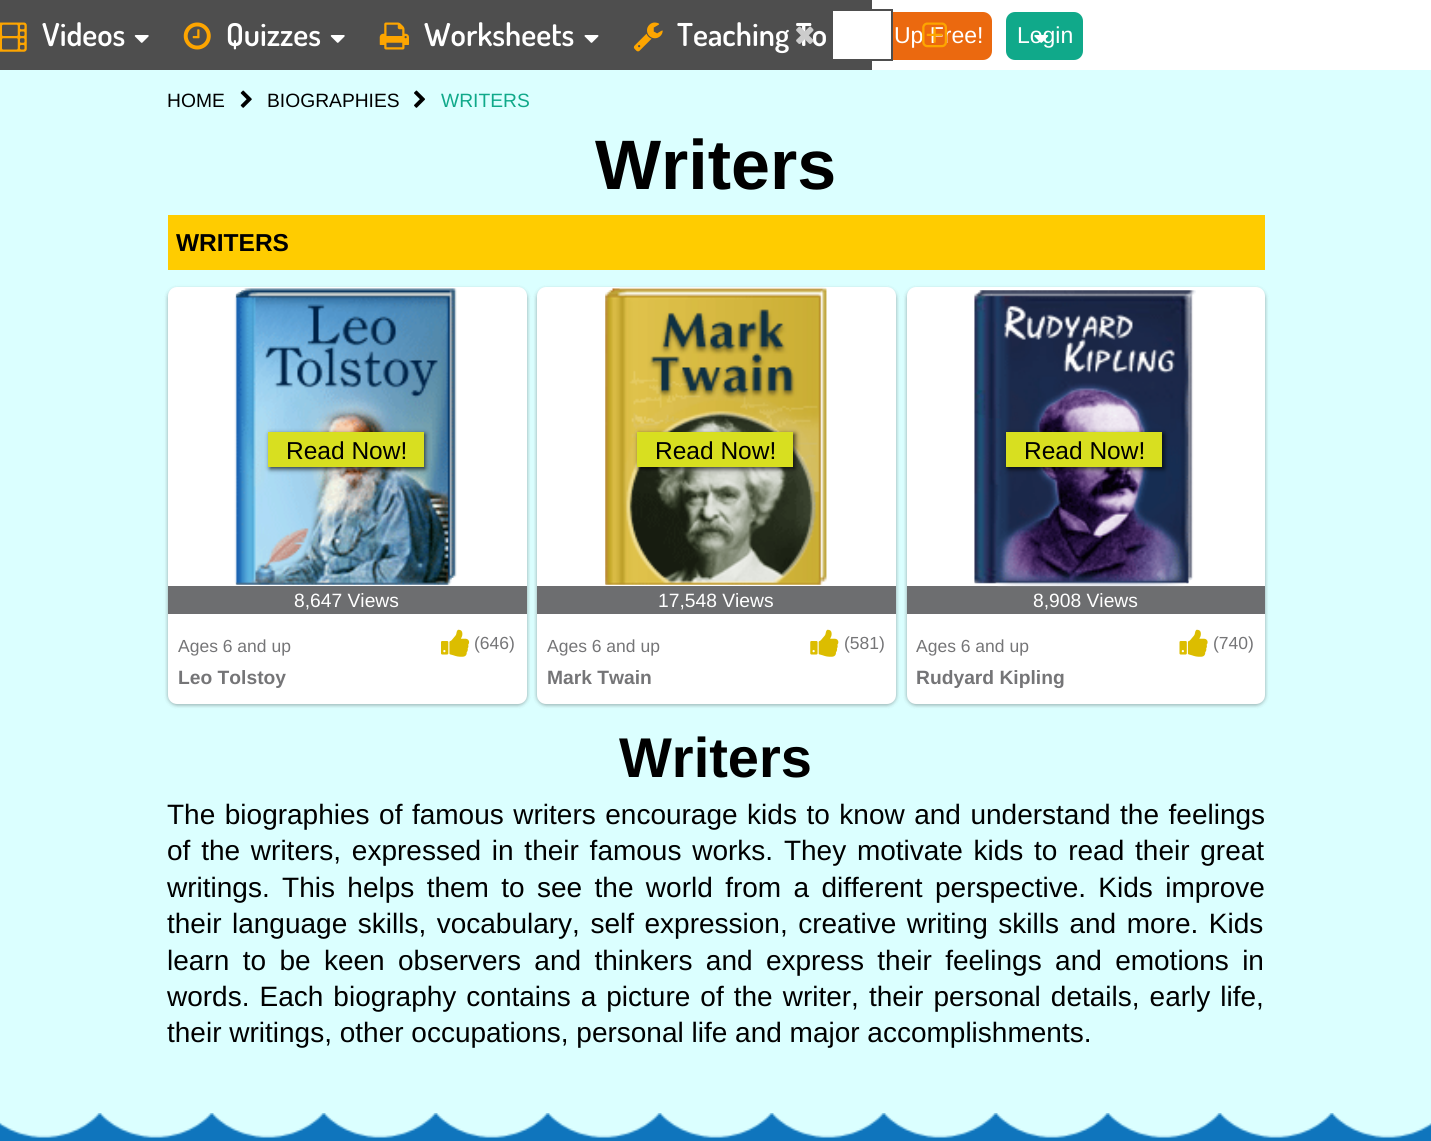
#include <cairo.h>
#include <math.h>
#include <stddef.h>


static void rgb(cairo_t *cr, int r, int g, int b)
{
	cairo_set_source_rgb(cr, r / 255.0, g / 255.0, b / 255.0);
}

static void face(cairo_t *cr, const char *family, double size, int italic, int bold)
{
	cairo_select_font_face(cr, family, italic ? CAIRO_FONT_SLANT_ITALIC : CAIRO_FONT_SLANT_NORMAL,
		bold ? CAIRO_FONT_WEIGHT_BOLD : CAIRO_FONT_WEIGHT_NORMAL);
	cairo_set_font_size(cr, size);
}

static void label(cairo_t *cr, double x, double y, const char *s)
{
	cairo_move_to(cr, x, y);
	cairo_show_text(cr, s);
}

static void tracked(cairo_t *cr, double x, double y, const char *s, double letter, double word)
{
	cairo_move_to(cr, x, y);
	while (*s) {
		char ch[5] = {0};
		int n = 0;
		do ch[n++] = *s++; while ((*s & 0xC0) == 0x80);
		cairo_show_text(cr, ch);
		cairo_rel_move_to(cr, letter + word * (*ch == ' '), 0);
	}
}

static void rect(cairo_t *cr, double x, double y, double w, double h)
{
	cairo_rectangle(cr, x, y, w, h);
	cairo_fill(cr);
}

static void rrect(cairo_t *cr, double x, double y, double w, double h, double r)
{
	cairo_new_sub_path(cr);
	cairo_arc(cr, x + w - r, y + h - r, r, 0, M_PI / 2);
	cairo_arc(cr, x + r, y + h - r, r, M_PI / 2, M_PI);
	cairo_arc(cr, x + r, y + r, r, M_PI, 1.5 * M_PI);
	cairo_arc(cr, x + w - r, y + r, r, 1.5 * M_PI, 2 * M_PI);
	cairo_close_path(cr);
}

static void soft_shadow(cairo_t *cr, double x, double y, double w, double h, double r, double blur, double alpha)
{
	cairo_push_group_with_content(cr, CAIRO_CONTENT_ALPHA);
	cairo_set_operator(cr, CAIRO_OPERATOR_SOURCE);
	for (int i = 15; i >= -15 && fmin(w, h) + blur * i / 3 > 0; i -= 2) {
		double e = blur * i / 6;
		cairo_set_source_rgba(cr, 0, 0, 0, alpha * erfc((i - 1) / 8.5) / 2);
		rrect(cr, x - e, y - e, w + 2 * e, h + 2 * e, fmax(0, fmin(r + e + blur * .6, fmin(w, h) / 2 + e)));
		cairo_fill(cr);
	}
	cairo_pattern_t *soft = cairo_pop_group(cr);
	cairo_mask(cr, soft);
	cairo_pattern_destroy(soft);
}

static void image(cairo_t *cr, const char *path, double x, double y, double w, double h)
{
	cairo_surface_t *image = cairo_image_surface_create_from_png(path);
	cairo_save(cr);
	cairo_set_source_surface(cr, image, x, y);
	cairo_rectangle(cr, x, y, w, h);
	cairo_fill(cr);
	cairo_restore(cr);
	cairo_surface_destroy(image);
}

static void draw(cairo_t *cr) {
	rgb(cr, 255, 255, 255);
	cairo_paint(cr);
	rgb(cr, 78, 78, 78);
	rect(cr, 0, 0, 872, 70);
	image(cr, "image0.png", 0, 22, 27, 30);
	face(cr, "Dosis SemiBold", 31.5, 0, 0);
	rgb(cr, 255, 255, 255);
	label(cr, 42, 46, "Videos");
	image(cr, "image1.png", 134, 35, 15, 8);
	image(cr, "image2.png", 183, 22, 28, 28);
	label(cr, 226, 46, "Quizzes");
	image(cr, "image1.png", 330, 35, 15, 8);
	image(cr, "image3.png", 379, 22, 30, 28);
	label(cr, 424, 46, "Worksheets");
	image(cr, "image4.png", 584, 35, 15, 8);
	image(cr, "image5.png", 633, 22, 30, 30);
	label(cr, 677, 46, "Teaching To");
	rgb(cr, 235, 105, 15);
	rrect(cr, 831, 12, 161, 48, 9);
	cairo_fill(cr);
	face(cr, "Liberation Sans", 23, 0, 0);
	rgb(cr, 255, 255, 255);
	label(cr, 894, 43, "Up Free!");
	image(cr, "image6.png", 922, 22, 25, 26);
	rgb(cr, 16, 169, 138);
	rrect(cr, 1006, 12, 77, 48, 9);
	cairo_fill(cr);
	rgb(cr, 255, 255, 255);
	label(cr, 1017, 43, "Login");
	image(cr, "image7.png", 1034, 35, 15, 8);
	image(cr, "image8.png", 796, 26, 18, 18);
	cairo_rectangle(cr, 832, 10, 60, 50);
	cairo_fill_preserve(cr);
	rgb(cr, 78, 78, 78);
	cairo_stroke(cr);
	rgb(cr, 219, 255, 255);
	rect(cr, 0, 70, 1431, 1068);
	face(cr, "Liberation Sans", 19.25, 0, 0);
	rgb(cr, 0, 0, 0);
	label(cr, 167, 107, "HOME");
	image(cr, "image9.png", 240, 90, 12, 18);
	label(cr, 267, 107, "BIOGRAPHIES");
	image(cr, "image10.png", 414, 90, 11, 18);
	rgb(cr, 16, 169, 138);
	label(cr, 441, 107, "WRITERS");
	face(cr, "Liberation Sans", 70, 0, 1);
	rgb(cr, 0, 0, 0);
	label(cr, 595, 189, "Writers");
	rgb(cr, 255, 204, 0);
	rect(cr, 168, 215, 1097, 55);
	face(cr, "Liberation Sans", 24.5, 0, 1);
	rgb(cr, 0, 0, 0);
	label(cr, 176, 251, "WRITERS");
	rgb(cr, 0, 0, 0);
	soft_shadow(cr, 168, 289, 359, 416, 9, 2, 0.24);
	soft_shadow(cr, 168, 289, 359, 416, 9, 2.5, 0.12);
	rgb(cr, 255, 255, 255);
	rrect(cr, 168, 287, 359, 417, 9);
	cairo_fill(cr);
	image(cr, "image11.png", 234, 288, 223, 297);
	image(cr, "image12.png", 235, 288, 222, 297);
	rgb(cr, 0, 0, 0);
	soft_shadow(cr, 270, 434, 155, 35, 0, 2.5, 0.75);
	rgb(cr, 216, 223, 32);
	rect(cr, 268, 432, 156, 35);
	face(cr, "Liberation Sans", 24.5, 0, 0);
	rgb(cr, 0, 0, 0);
	label(cr, 286, 459, "Read Now!");
	rgb(cr, 109, 110, 112);
	rect(cr, 168, 586, 359, 28);
	face(cr, "Liberation Sans", 19.25, 0, 0);
	rgb(cr, 255, 255, 255);
	label(cr, 294, 607, "8,647 Views");
	face(cr, "Liberation Sans", 17.5, 0, 0);
	rgb(cr, 117, 117, 119);
	label(cr, 178, 652, "Ages 6 and up");
	image(cr, "image13.png", 441, 629, 29, 28);
	label(cr, 474, 649, "(646)");
	cairo_save(cr);
	cairo_rectangle(cr, 179, 665, 302, 28);
	cairo_clip(cr);
	face(cr, "Liberation Sans", 19.25, 0, 1);
	label(cr, 178, 684, "Leo Tolstoy");
	cairo_restore(cr);
	rgb(cr, 0, 0, 0);
	soft_shadow(cr, 537, 289, 359, 416, 9, 2, 0.24);
	soft_shadow(cr, 537, 289, 359, 416, 9, 2.5, 0.12);
	rgb(cr, 255, 255, 255);
	rrect(cr, 537, 287, 359, 417, 9);
	cairo_fill(cr);
	image(cr, "image14.png", 605, 287, 222, 298);
	image(cr, "image15.png", 605, 288, 222, 297);
	rgb(cr, 0, 0, 0);
	soft_shadow(cr, 639, 434, 156, 35, 0, 2.5, 0.75);
	rgb(cr, 216, 223, 32);
	rect(cr, 637, 432, 156, 35);
	face(cr, "Liberation Sans", 24.5, 0, 0);
	rgb(cr, 0, 0, 0);
	label(cr, 655, 459, "Read Now!");
	rgb(cr, 109, 110, 112);
	rect(cr, 537, 586, 359, 28);
	face(cr, "Liberation Sans", 19.25, 0, 0);
	rgb(cr, 255, 255, 255);
	label(cr, 658, 607, "17,548 Views");
	face(cr, "Liberation Sans", 17.5, 0, 0);
	rgb(cr, 117, 117, 119);
	label(cr, 547, 652, "Ages 6 and up");
	image(cr, "image16.png", 810, 629, 29, 28);
	label(cr, 844, 649, "(581)");
	face(cr, "Liberation Sans", 19.25, 0, 1);
	label(cr, 547, 684, "Mark Twain");
	rgb(cr, 0, 0, 0);
	soft_shadow(cr, 907, 289, 358, 416, 9, 2, 0.24);
	soft_shadow(cr, 907, 289, 358, 416, 9, 2.5, 0.12);
	rgb(cr, 255, 255, 255);
	rrect(cr, 907, 287, 358, 417, 9);
	cairo_fill(cr);
	image(cr, "image17.png", 974, 290, 222, 296);
	rgb(cr, 109, 110, 112);
	rect(cr, 907, 586, 358, 28);
	image(cr, "image18.png", 974, 290, 222, 297);
	rgb(cr, 0, 0, 0);
	soft_shadow(cr, 1008, 434, 156, 35, 0, 2.5, 0.75);
	rgb(cr, 216, 223, 32);
	rect(cr, 1006, 432, 156, 35);
	face(cr, "Liberation Sans", 24.5, 0, 0);
	rgb(cr, 0, 0, 0);
	label(cr, 1024, 459, "Read Now!");
	face(cr, "Liberation Sans", 19.25, 0, 0);
	rgb(cr, 255, 255, 255);
	label(cr, 1033, 607, "8,908 Views");
	face(cr, "Liberation Sans", 17.5, 0, 0);
	rgb(cr, 117, 117, 119);
	label(cr, 916, 652, "Ages 6 and up");
	image(cr, "image19.png", 1179, 629, 29, 28);
	label(cr, 1213, 649, "(740)");
	face(cr, "Liberation Sans", 19.25, 0, 1);
	label(cr, 916, 684, "Rudyard Kipling");
	face(cr, "Liberation Sans", 56, 0, 1);
	rgb(cr, 0, 0, 0);
	label(cr, 619, 777, "Writers");
	face(cr, "Liberation Sans", 28, 0, 0);
	tracked(cr, 167, 824, "The biographies of famous writers encourage kids to know and understand the feelings", 0, 1.75);
	tracked(cr, 167, 860, "of the writers, expressed in their famous works. They motivate kids to read their great", 0, 3);
	tracked(cr, 167, 897, "writings. This helps them to see the world from a different perspective. Kids improve", 0, 4.6);
	tracked(cr, 167, 933, "their language skills, vocabulary, self expression, creative writing skills and more. Kids", 0, 2.75);
	tracked(cr, 167, 970, "learn to be keen observers and thinkers and express their feelings and emotions in", 0, 5.6);
	tracked(cr, 167, 1006, "words. Each biography contains a picture of the writer, their personal details, early life,", 0, 2.25);
	label(cr, 167, 1042, "their writings, other occupations, personal life and major accomplishments.");
	image(cr, "image20.png", 0, 1113, 1431, 28);
}

int main(void) {
	cairo_surface_t *surface = cairo_image_surface_create(CAIRO_FORMAT_RGB24, 1431, 1141);
	cairo_t *cr = cairo_create(surface);
	cairo_font_options_t *options = cairo_font_options_create();
	cairo_font_options_set_hint_metrics(options, CAIRO_HINT_METRICS_OFF);
	cairo_font_options_set_hint_style(options, CAIRO_HINT_STYLE_NONE);
	cairo_set_font_options(cr, options);
	cairo_set_miter_limit(cr, 4);
	draw(cr);
	cairo_surface_write_to_png(surface, "render.png");
	cairo_font_options_destroy(options);
	cairo_destroy(cr);
	cairo_surface_destroy(surface);
	return 0;
}
